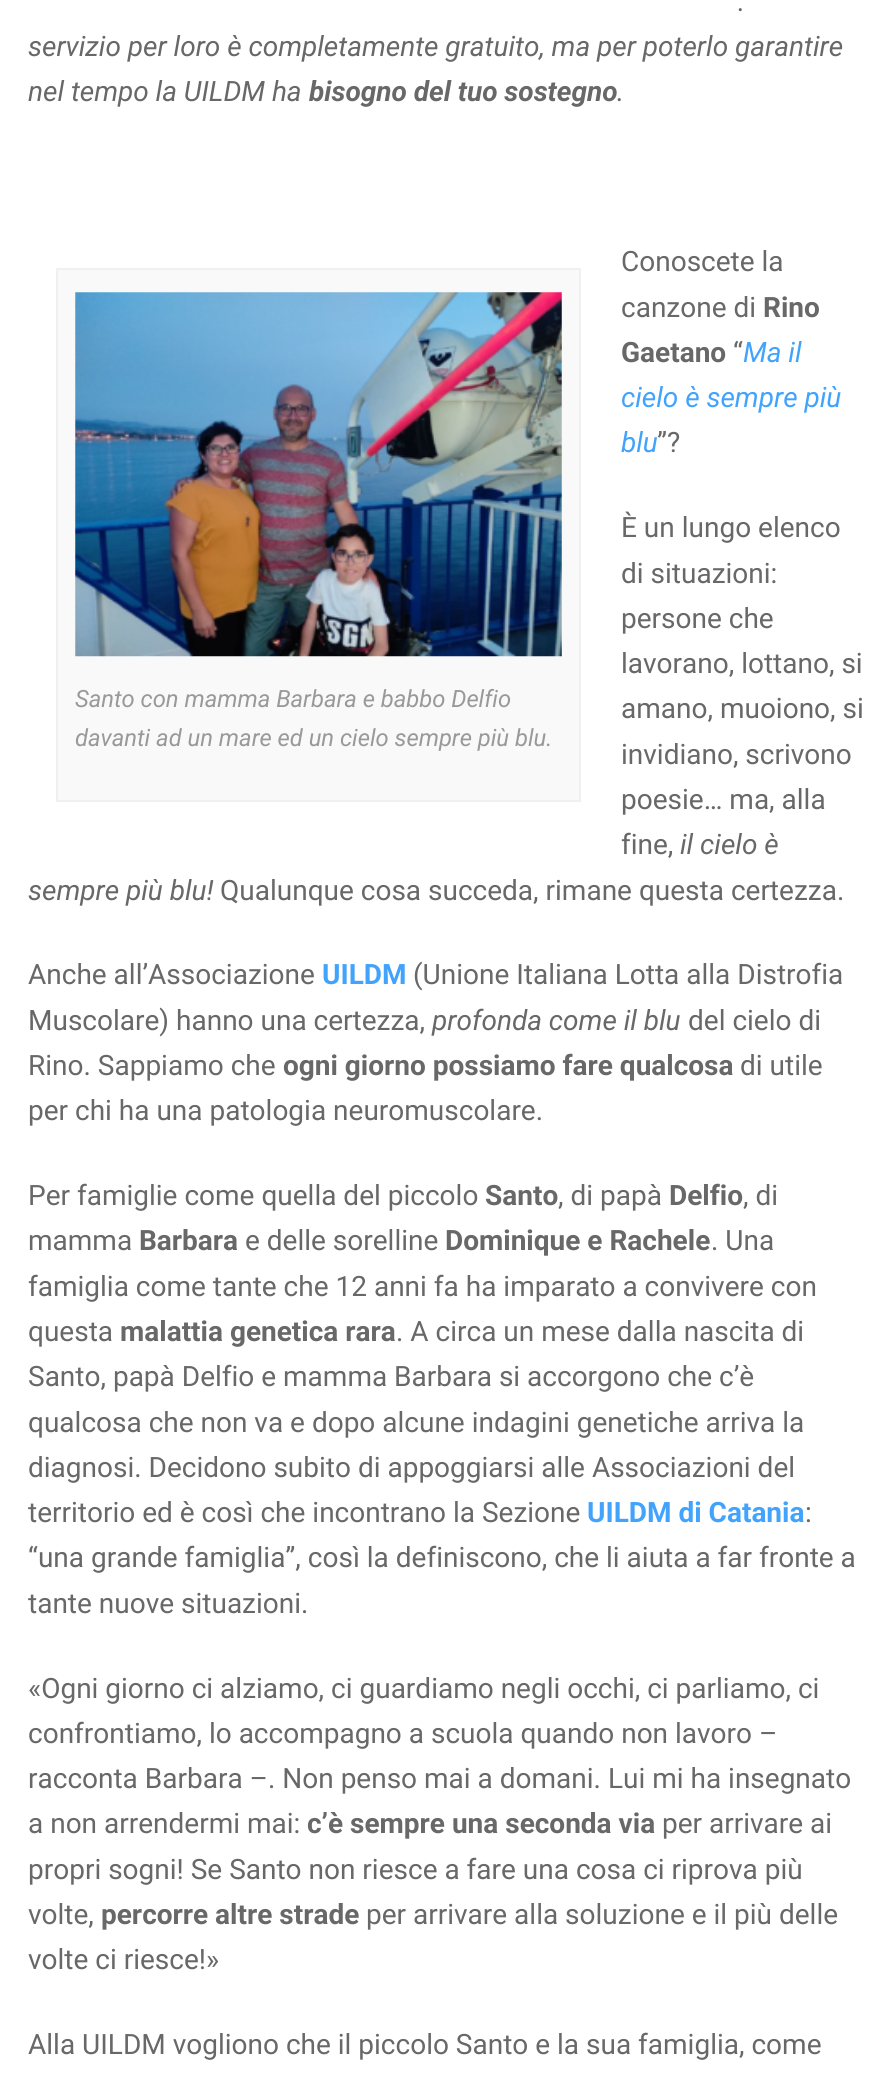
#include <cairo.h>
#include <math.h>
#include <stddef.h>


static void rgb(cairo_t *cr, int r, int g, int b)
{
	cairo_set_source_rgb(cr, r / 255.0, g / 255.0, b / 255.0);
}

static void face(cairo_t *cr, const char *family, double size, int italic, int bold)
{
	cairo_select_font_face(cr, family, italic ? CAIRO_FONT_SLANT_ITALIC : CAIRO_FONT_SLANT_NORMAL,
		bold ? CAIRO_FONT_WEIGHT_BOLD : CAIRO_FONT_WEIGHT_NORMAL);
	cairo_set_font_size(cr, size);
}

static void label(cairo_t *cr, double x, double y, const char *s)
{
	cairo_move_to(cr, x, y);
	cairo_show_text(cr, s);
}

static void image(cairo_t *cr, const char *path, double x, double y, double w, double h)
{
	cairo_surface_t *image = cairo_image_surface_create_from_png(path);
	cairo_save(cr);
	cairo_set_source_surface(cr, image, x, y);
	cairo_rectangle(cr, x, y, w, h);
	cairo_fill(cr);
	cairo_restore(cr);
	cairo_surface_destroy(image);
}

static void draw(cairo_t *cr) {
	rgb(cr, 255, 255, 255);
	cairo_paint(cr);
	face(cr, "Roboto", 28, 1, 0);
	rgb(cr, 104, 104, 104);
	label(cr, 738, 11, ".");
	label(cr, 28, 56, "servizio per loro è completamente gratuito, ma per poterlo garantire");
	label(cr, 28, 101, "nel tempo la UILDM ha");
	face(cr, "Roboto", 28, 1, 1);
	label(cr, 309, 101, "bisogno del tuo sostegno");
	face(cr, "Roboto", 28, 1, 0);
	label(cr, 617, 101, ".");
	face(cr, "Roboto", 28, 0, 0);
	label(cr, 621, 271, "Conoscete la");
	label(cr, 621, 317, "canzone di");
	face(cr, "Roboto", 28, 0, 1);
	label(cr, 763, 317, "Rino");
	label(cr, 621, 362, "Gaetano");
	face(cr, "Roboto", 28, 0, 0);
	label(cr, 733, 362, "“");
	face(cr, "Roboto", 28, 1, 0);
	rgb(cr, 66, 163, 253);
	label(cr, 743, 362, "Ma il");
	label(cr, 621, 407, "cielo è sempre più");
	label(cr, 621, 452, "blu");
	face(cr, "Roboto", 28, 0, 0);
	rgb(cr, 104, 104, 104);
	label(cr, 657, 452, "”?");
	label(cr, 621, 537, "È un lungo elenco");
	label(cr, 621, 583, "di situazioni:");
	label(cr, 621, 628, "persone che");
	label(cr, 621, 673, "lavorano, lottano, si");
	label(cr, 621, 718, "amano, muoiono, si");
	label(cr, 621, 764, "invidiano, scrivono");
	label(cr, 621, 809, "poesie… ma, alla");
	label(cr, 621, 854, "fine,");
	face(cr, "Roboto", 28, 1, 0);
	label(cr, 680, 854, "il cielo è");
	label(cr, 28, 900, "sempre più blu!");
	face(cr, "Roboto", 28, 0, 0);
	label(cr, 220, 900, "Qualunque cosa succeda, rimane questa certezza.");
	rgb(cr, 249, 249, 249);
	cairo_rectangle(cr, 57, 269, 523, 532);
	cairo_fill_preserve(cr);
	rgb(cr, 240, 240, 240);
	cairo_stroke(cr);
	image(cr, "image0.png", 75, 292, 487, 365);
	face(cr, "Roboto", 23.8, 1, 0);
	rgb(cr, 153, 153, 153);
	label(cr, 75, 707, "Santo con mamma Barbara e babbo Delfio");
	label(cr, 75, 746, "davanti ad un mare ed un cielo sempre più blu.");
	face(cr, "Roboto", 28, 0, 0);
	rgb(cr, 104, 104, 104);
	label(cr, 28, 984, "Anche all’Associazione");
	face(cr, "Roboto", 28, 0, 1);
	rgb(cr, 66, 163, 253);
	label(cr, 322, 984, "UILDM");
	face(cr, "Roboto", 28, 0, 0);
	rgb(cr, 104, 104, 104);
	label(cr, 413, 984, "(Unione Italiana Lotta alla Distrofia");
	label(cr, 28, 1030, "Muscolare) hanno una certezza,");
	face(cr, "Roboto", 28, 1, 0);
	label(cr, 432, 1030, "profonda come il blu");
	face(cr, "Roboto", 28, 0, 0);
	label(cr, 688, 1030, "del cielo di");
	label(cr, 28, 1075, "Rino. Sappiamo che");
	face(cr, "Roboto", 28, 0, 1);
	label(cr, 283, 1075, "ogni giorno possiamo fare qualcosa");
	face(cr, "Roboto", 28, 0, 0);
	label(cr, 740, 1075, "di utile");
	label(cr, 28, 1120, "per chi ha una patologia neuromuscolare.");
	label(cr, 28, 1205, "Per famiglie come quella del piccolo");
	face(cr, "Roboto", 28, 0, 1);
	label(cr, 485, 1205, "Santo");
	face(cr, "Roboto", 28, 0, 0);
	label(cr, 558, 1205, ", di papà");
	face(cr, "Roboto", 28, 0, 1);
	label(cr, 669, 1205, "Delfio");
	face(cr, "Roboto", 28, 0, 0);
	label(cr, 743, 1205, ", di");
	label(cr, 28, 1250, "mamma");
	face(cr, "Roboto", 28, 0, 1);
	label(cr, 139, 1250, "Barbara");
	face(cr, "Roboto", 28, 0, 0);
	label(cr, 245, 1250, "e delle sorelline");
	face(cr, "Roboto", 28, 0, 1);
	label(cr, 445, 1250, "Dominique e Rachele");
	face(cr, "Roboto", 28, 0, 0);
	label(cr, 711, 1250, ". Una");
	label(cr, 28, 1296, "famiglia come tante che 12 anni fa ha imparato a convivere con");
	label(cr, 28, 1341, "questa");
	face(cr, "Roboto", 28, 0, 1);
	label(cr, 120, 1341, "malattia genetica rara");
	face(cr, "Roboto", 28, 0, 0);
	label(cr, 396, 1341, ". A circa un mese dalla nascita di");
	label(cr, 28, 1386, "Santo, papà Delfio e mamma Barbara si accorgono che c’è");
	label(cr, 28, 1432, "qualcosa che non va e dopo alcune indagini genetiche arriva la");
	label(cr, 28, 1477, "diagnosi. Decidono subito di appoggiarsi alle Associazioni del");
	label(cr, 28, 1522, "territorio ed è così che incontrano la Sezione");
	face(cr, "Roboto", 28, 0, 1);
	rgb(cr, 66, 163, 253);
	label(cr, 587, 1522, "UILDM di Catania");
	face(cr, "Roboto", 28, 0, 0);
	rgb(cr, 104, 104, 104);
	label(cr, 805, 1522, ":");
	label(cr, 28, 1567, "“una grande famiglia”, così la definiscono, che li aiuta a far fronte a");
	label(cr, 28, 1613, "tante nuove situazioni.");
	label(cr, 28, 1698, "«Ogni giorno ci alziamo, ci guardiamo negli occhi, ci parliamo, ci");
	label(cr, 28, 1743, "confrontiamo, lo accompagno a scuola quando non lavoro –");
	label(cr, 28, 1788, "racconta Barbara –. Non penso mai a domani. Lui mi ha insegnato");
	label(cr, 28, 1833, "a non arrendermi mai:");
	face(cr, "Roboto", 28, 0, 1);
	label(cr, 307, 1833, "c’è sempre una seconda via");
	face(cr, "Roboto", 28, 0, 0);
	label(cr, 662, 1833, "per arrivare ai");
	label(cr, 28, 1879, "propri sogni! Se Santo non riesce a fare una cosa ci riprova più");
	label(cr, 28, 1924, "volte,");
	face(cr, "Roboto", 28, 0, 1);
	label(cr, 101, 1924, "percorre altre strade");
	face(cr, "Roboto", 28, 0, 0);
	label(cr, 366, 1924, "per arrivare alla soluzione e il più delle");
	label(cr, 28, 1969, "volte ci riesce!»");
	label(cr, 28, 2054, "Alla UILDM vogliono che il piccolo Santo e la sua famiglia, come");
}

int main(void) {
	cairo_surface_t *surface = cairo_image_surface_create(CAIRO_FORMAT_RGB24, 891, 2084);
	cairo_t *cr = cairo_create(surface);
	cairo_font_options_t *options = cairo_font_options_create();
	cairo_font_options_set_hint_metrics(options, CAIRO_HINT_METRICS_OFF);
	cairo_font_options_set_hint_style(options, CAIRO_HINT_STYLE_NONE);
	cairo_set_font_options(cr, options);
	cairo_set_miter_limit(cr, 4);
	draw(cr);
	cairo_surface_write_to_png(surface, "render.png");
	cairo_font_options_destroy(options);
	cairo_destroy(cr);
	cairo_surface_destroy(surface);
	return 0;
}
